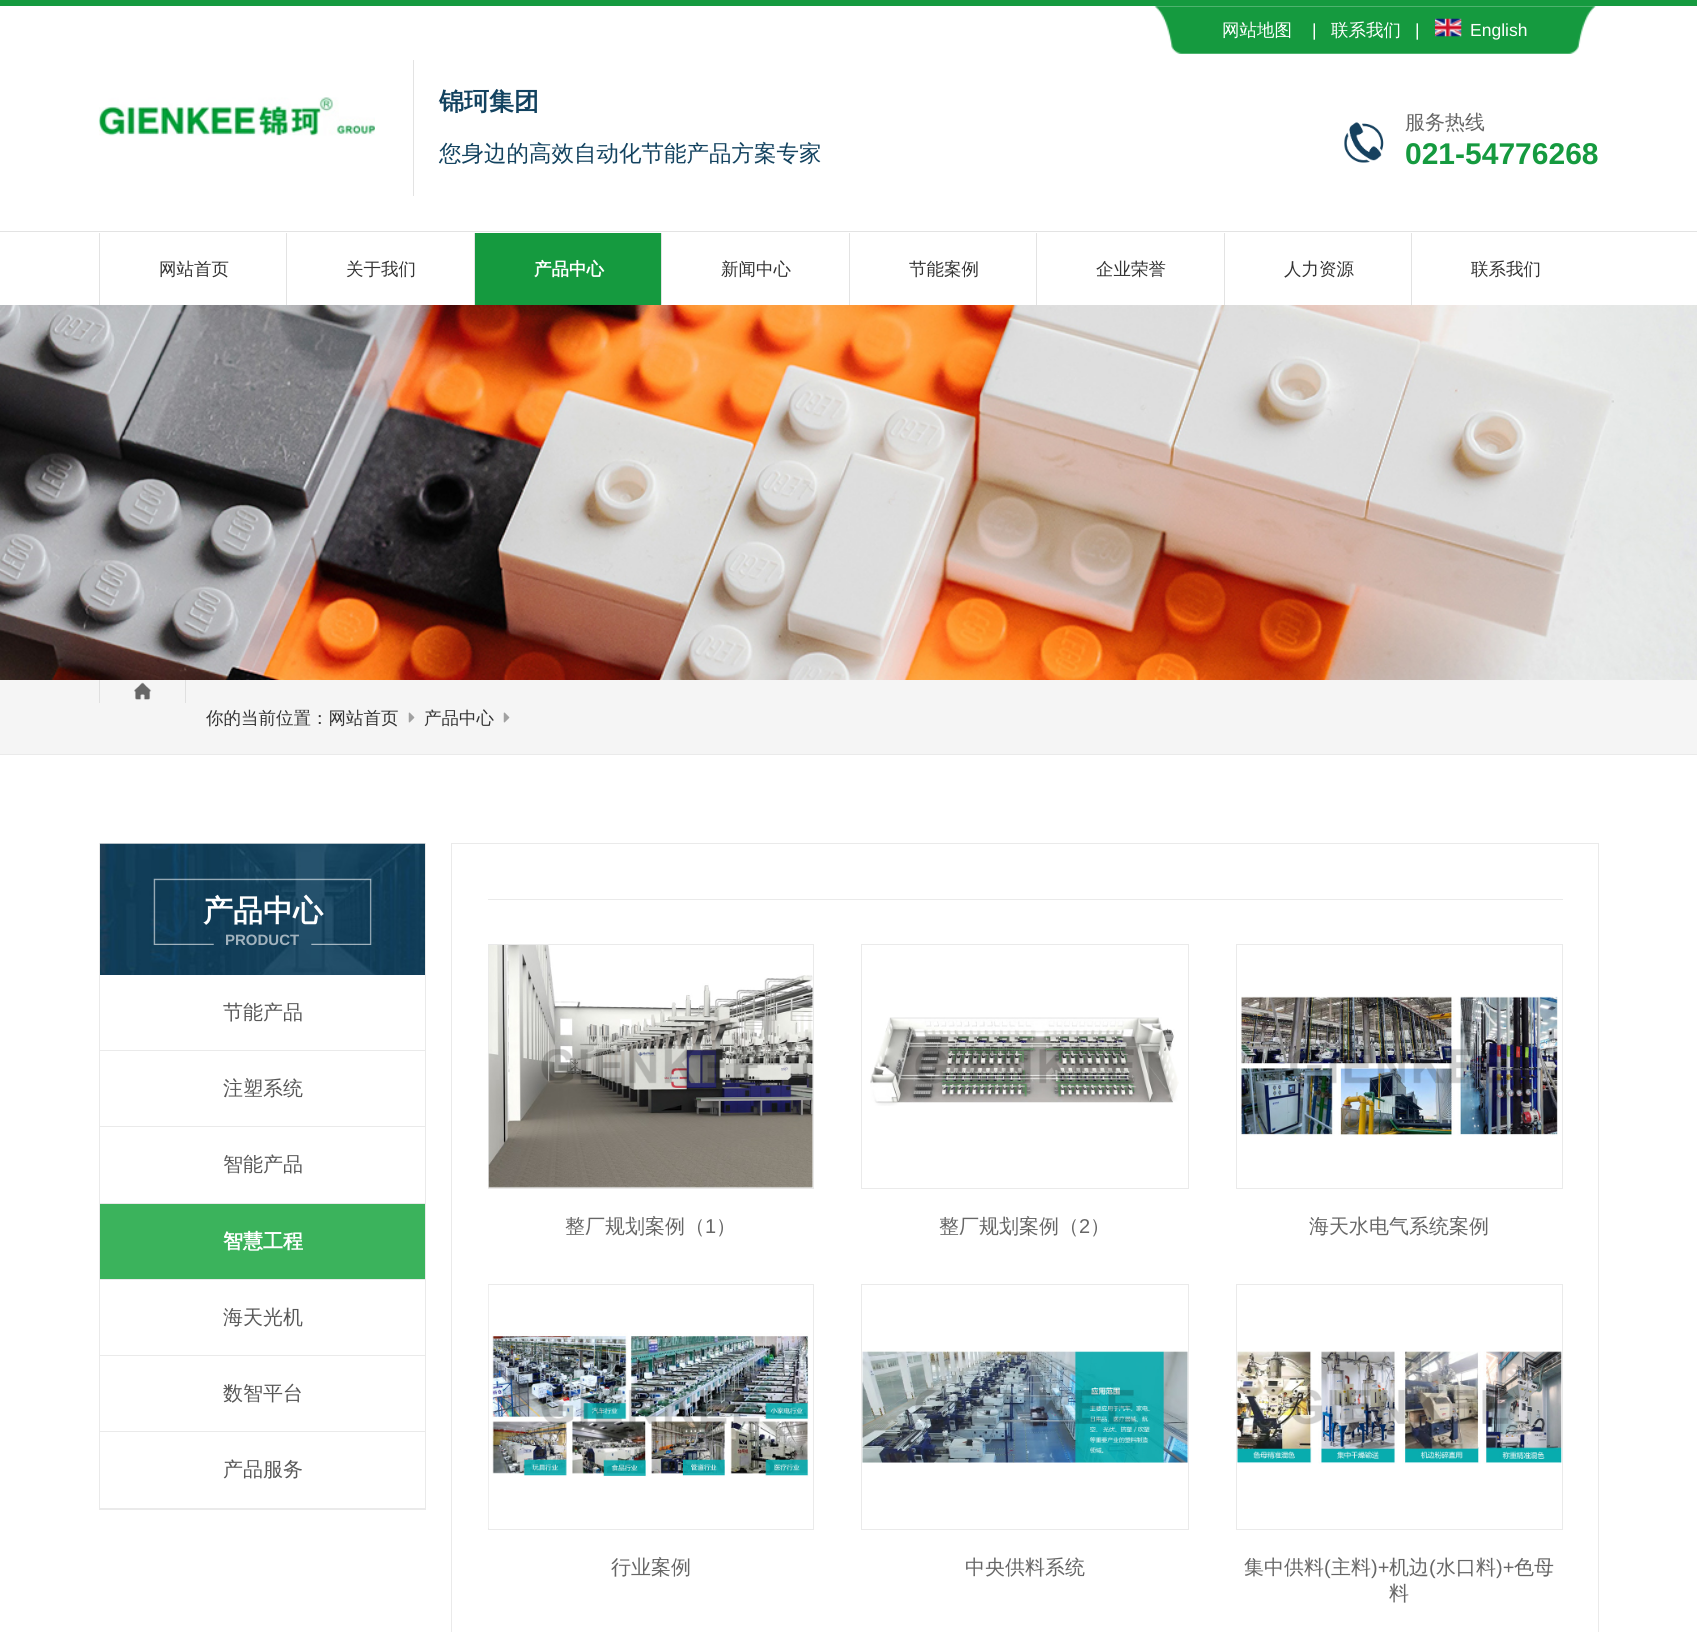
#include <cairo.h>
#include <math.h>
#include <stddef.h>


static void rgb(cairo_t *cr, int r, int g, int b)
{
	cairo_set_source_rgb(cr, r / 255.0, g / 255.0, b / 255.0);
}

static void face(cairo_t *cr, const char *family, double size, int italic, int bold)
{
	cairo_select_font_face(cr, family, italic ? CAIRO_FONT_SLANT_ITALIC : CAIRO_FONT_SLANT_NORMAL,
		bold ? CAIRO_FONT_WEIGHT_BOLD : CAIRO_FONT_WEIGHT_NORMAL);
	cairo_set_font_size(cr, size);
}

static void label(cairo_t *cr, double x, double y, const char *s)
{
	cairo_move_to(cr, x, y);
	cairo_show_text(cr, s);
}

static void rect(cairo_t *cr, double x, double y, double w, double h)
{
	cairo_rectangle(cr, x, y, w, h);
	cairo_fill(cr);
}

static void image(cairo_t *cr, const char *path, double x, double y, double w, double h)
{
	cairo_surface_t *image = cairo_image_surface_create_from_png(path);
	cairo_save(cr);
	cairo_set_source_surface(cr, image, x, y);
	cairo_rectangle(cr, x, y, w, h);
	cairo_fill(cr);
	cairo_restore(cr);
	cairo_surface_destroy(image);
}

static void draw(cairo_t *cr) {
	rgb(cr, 255, 255, 255);
	cairo_paint(cr);
	rgb(cr, 21, 154, 63);
	rect(cr, 0, 0, 1697, 6);
	image(cr, "image0.png", 1154, 6, 442, 48);
	face(cr, "WenQuanYi Zen Hei Medium", 17.5, 0, 0);
	rgb(cr, 255, 255, 255);
	label(cr, 1222, 36, "网站地图");
	face(cr, "Liberation Sans", 17.5, 0, 0);
	label(cr, 1312, 36, "|");
	face(cr, "WenQuanYi Zen Hei Medium", 17.5, 0, 0);
	label(cr, 1331, 36, "联系我们");
	face(cr, "Liberation Sans", 17.5, 0, 0);
	label(cr, 1415, 36, "|");
	image(cr, "image1.png", 1435, 18, 27, 19);
	label(cr, 1470, 36, "English");
	image(cr, "image2.png", 98, 97, 277, 39);
	rgb(cr, 227, 227, 227);
	rect(cr, 413, 60, 1, 136);
	face(cr, "WenQuanYi Zen Hei", 25, 0, 1);
	rgb(cr, 18, 66, 95);
	label(cr, 439, 110, "锦珂集团");
	face(cr, "WenQuanYi Zen Hei Medium", 22.5, 0, 0);
	label(cr, 439, 161, "您身边的高效自动化节能产品方案专家");
	image(cr, "image3.png", 1344, 122, 40, 41);
	face(cr, "WenQuanYi Zen Hei Medium", 20, 0, 0);
	rgb(cr, 102, 102, 102);
	label(cr, 1405, 129, "服务热线");
	face(cr, "Liberation Sans", 30, 0, 1);
	rgb(cr, 21, 154, 63);
	label(cr, 1405, 164, "021-54776268");
	rgb(cr, 227, 227, 227);
	rect(cr, 0, 231, 1697, 1);
	rect(cr, 99, 233, 1, 72);
	face(cr, "WenQuanYi Zen Hei Medium", 17.5, 0, 0);
	rgb(cr, 51, 51, 51);
	label(cr, 159, 275, "网站首页");
	rgb(cr, 227, 227, 227);
	rect(cr, 286, 233, 1, 72);
	rgb(cr, 51, 51, 51);
	label(cr, 346, 275, "关于我们");
	rgb(cr, 21, 154, 63);
	rect(cr, 475, 233, 186, 72);
	rgb(cr, 227, 227, 227);
	rect(cr, 474, 233, 1, 72);
	face(cr, "WenQuanYi Zen Hei", 17.5, 0, 1);
	rgb(cr, 255, 255, 255);
	label(cr, 534, 275, "产品中心");
	rgb(cr, 227, 227, 227);
	rect(cr, 661, 233, 1, 72);
	face(cr, "WenQuanYi Zen Hei Medium", 17.5, 0, 0);
	rgb(cr, 51, 51, 51);
	label(cr, 721, 275, "新闻中心");
	rgb(cr, 227, 227, 227);
	rect(cr, 849, 233, 1, 72);
	rgb(cr, 51, 51, 51);
	label(cr, 909, 275, "节能案例");
	rgb(cr, 227, 227, 227);
	rect(cr, 1036, 233, 1, 72);
	rgb(cr, 51, 51, 51);
	label(cr, 1096, 275, "企业荣誉");
	rgb(cr, 227, 227, 227);
	rect(cr, 1224, 233, 1, 72);
	rgb(cr, 51, 51, 51);
	label(cr, 1284, 275, "人力资源");
	rgb(cr, 227, 227, 227);
	rect(cr, 1411, 233, 1, 72);
	rgb(cr, 51, 51, 51);
	label(cr, 1471, 275, "联系我们");
	image(cr, "image4.png", 0, 305, 1697, 375);
	rgb(cr, 245, 245, 245);
	rect(cr, 0, 680, 1697, 74);
	rgb(cr, 234, 234, 234);
	rect(cr, 0, 754, 1697, 1);
	rgb(cr, 224, 224, 224);
	rect(cr, 185, 680, 1, 23);
	rect(cr, 99, 680, 1, 23);
	image(cr, "image5.png", 134, 682, 18, 18);
	rgb(cr, 51, 51, 51);
	label(cr, 206, 724, "你的当前位置：网站首页");
	image(cr, "image6.png", 408, 712, 7, 11);
	label(cr, 424, 724, "产品中心");
	image(cr, "image6.png", 503, 712, 7, 11);
	cairo_rectangle(cr, 99.5, 843.5, 326, 666);
	rgb(cr, 234, 234, 234);
	cairo_set_line_width(cr, 1);
	cairo_stroke(cr);
	image(cr, "image7.png", 100, 843, 325, 132);
	image(cr, "image8.png", 153, 878, 219, 67);
	face(cr, "WenQuanYi Zen Hei", 30, 0, 1);
	rgb(cr, 255, 255, 255);
	label(cr, 203, 921, "产品中心");
	face(cr, "Liberation Sans", 15, 0, 1);
	rgb(cr, 161, 178, 189);
	label(cr, 225, 945, "PRODUCT");
	rgb(cr, 234, 234, 234);
	rect(cr, 100, 1050, 325, 1);
	face(cr, "WenQuanYi Zen Hei Medium", 20, 0, 0);
	rgb(cr, 88, 88, 88);
	label(cr, 223, 1019, "节能产品");
	rgb(cr, 234, 234, 234);
	rect(cr, 100, 1126, 325, 1);
	rgb(cr, 88, 88, 88);
	label(cr, 223, 1095, "注塑系统");
	rgb(cr, 234, 234, 234);
	rect(cr, 100, 1203, 325, 1);
	rgb(cr, 88, 88, 88);
	label(cr, 223, 1171, "智能产品");
	rgb(cr, 59, 179, 92);
	rect(cr, 100, 1204, 325, 75);
	rgb(cr, 234, 234, 234);
	rect(cr, 100, 1279, 325, 1);
	face(cr, "WenQuanYi Zen Hei", 20, 0, 1);
	rgb(cr, 255, 255, 255);
	label(cr, 223, 1248, "智慧工程");
	rgb(cr, 234, 234, 234);
	rect(cr, 100, 1355, 325, 1);
	face(cr, "WenQuanYi Zen Hei Medium", 20, 0, 0);
	rgb(cr, 88, 88, 88);
	label(cr, 223, 1324, "海天光机");
	rgb(cr, 234, 234, 234);
	rect(cr, 100, 1431, 325, 1);
	rgb(cr, 88, 88, 88);
	label(cr, 223, 1400, "数智平台");
	rgb(cr, 234, 234, 234);
	rect(cr, 100, 1508, 325, 1);
	rgb(cr, 88, 88, 88);
	label(cr, 223, 1476, "产品服务");
	cairo_rectangle(cr, 451.5, 843.5, 1147, 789);
	rgb(cr, 234, 234, 234);
	cairo_stroke(cr);
	rect(cr, 488, 899, 1075, 1);
	cairo_rectangle(cr, 488.5, 944.5, 325, 244);
	cairo_stroke(cr);
	image(cr, "image9.png", 488, 945, 325, 243);
	rgb(cr, 102, 102, 102);
	label(cr, 565, 1233, "整厂规划案例（");
	face(cr, "Liberation Sans", 20, 0, 0);
	label(cr, 705, 1233, "1");
	face(cr, "WenQuanYi Zen Hei Medium", 20, 0, 0);
	label(cr, 716, 1233, "）");
	cairo_rectangle(cr, 861.5, 944.5, 327, 244);
	rgb(cr, 234, 234, 234);
	cairo_stroke(cr);
	image(cr, "image10.png", 870, 1017, 309, 89);
	rgb(cr, 102, 102, 102);
	label(cr, 939, 1233, "整厂规划案例（");
	face(cr, "Liberation Sans", 20, 0, 0);
	label(cr, 1079, 1233, "2");
	face(cr, "WenQuanYi Zen Hei Medium", 20, 0, 0);
	label(cr, 1090, 1233, "）");
	cairo_rectangle(cr, 1236.5, 944.5, 326, 244);
	rgb(cr, 234, 234, 234);
	cairo_stroke(cr);
	image(cr, "image11.png", 1241, 996, 317, 140);
	rgb(cr, 102, 102, 102);
	label(cr, 1309, 1233, "海天水电气系统案例");
	cairo_rectangle(cr, 488.5, 1284.5, 325, 245);
	rgb(cr, 234, 234, 234);
	cairo_stroke(cr);
	image(cr, "image12.png", 488, 1285, 321, 243);
	rgb(cr, 102, 102, 102);
	label(cr, 611, 1574, "行业案例");
	cairo_rectangle(cr, 861.5, 1284.5, 327, 245);
	rgb(cr, 234, 234, 234);
	cairo_stroke(cr);
	image(cr, "image13.png", 862, 1350, 326, 113);
	rgb(cr, 102, 102, 102);
	label(cr, 965, 1574, "中央供料系统");
	cairo_rectangle(cr, 1236.5, 1284.5, 326, 245);
	rgb(cr, 234, 234, 234);
	cairo_stroke(cr);
	image(cr, "image14.png", 1237, 1351, 325, 113);
	rgb(cr, 102, 102, 102);
	label(cr, 1244, 1574, "集中供料");
	face(cr, "Liberation Sans", 20, 0, 0);
	label(cr, 1324, 1574, "(");
	face(cr, "WenQuanYi Zen Hei Medium", 20, 0, 0);
	label(cr, 1331, 1574, "主料");
	face(cr, "Liberation Sans", 20, 0, 0);
	label(cr, 1371, 1574, ")+");
	face(cr, "WenQuanYi Zen Hei Medium", 20, 0, 0);
	label(cr, 1389, 1574, "机边");
	face(cr, "Liberation Sans", 20, 0, 0);
	label(cr, 1429, 1574, "(");
	face(cr, "WenQuanYi Zen Hei Medium", 20, 0, 0);
	label(cr, 1436, 1574, "水口料");
	face(cr, "Liberation Sans", 20, 0, 0);
	label(cr, 1496, 1574, ")+");
	face(cr, "WenQuanYi Zen Hei Medium", 20, 0, 0);
	label(cr, 1514, 1574, "色母");
	label(cr, 1389, 1600, "料");
}

int main(void) {
	cairo_surface_t *surface = cairo_image_surface_create(CAIRO_FORMAT_RGB24, 1697, 1632);
	cairo_t *cr = cairo_create(surface);
	cairo_font_options_t *options = cairo_font_options_create();
	cairo_font_options_set_hint_metrics(options, CAIRO_HINT_METRICS_OFF);
	cairo_font_options_set_hint_style(options, CAIRO_HINT_STYLE_NONE);
	cairo_set_font_options(cr, options);
	cairo_set_miter_limit(cr, 4);
	draw(cr);
	cairo_surface_write_to_png(surface, "render.png");
	cairo_font_options_destroy(options);
	cairo_destroy(cr);
	cairo_surface_destroy(surface);
	return 0;
}
